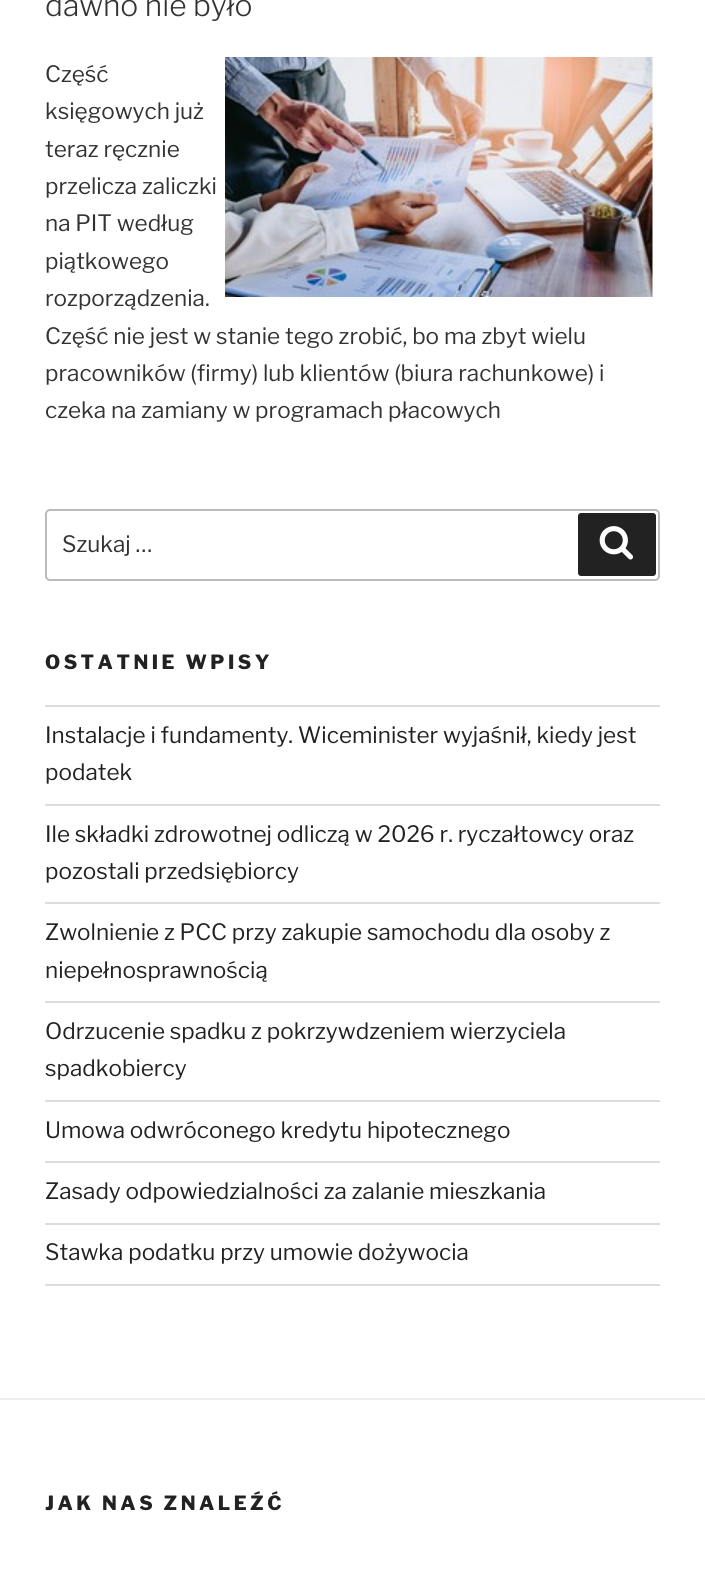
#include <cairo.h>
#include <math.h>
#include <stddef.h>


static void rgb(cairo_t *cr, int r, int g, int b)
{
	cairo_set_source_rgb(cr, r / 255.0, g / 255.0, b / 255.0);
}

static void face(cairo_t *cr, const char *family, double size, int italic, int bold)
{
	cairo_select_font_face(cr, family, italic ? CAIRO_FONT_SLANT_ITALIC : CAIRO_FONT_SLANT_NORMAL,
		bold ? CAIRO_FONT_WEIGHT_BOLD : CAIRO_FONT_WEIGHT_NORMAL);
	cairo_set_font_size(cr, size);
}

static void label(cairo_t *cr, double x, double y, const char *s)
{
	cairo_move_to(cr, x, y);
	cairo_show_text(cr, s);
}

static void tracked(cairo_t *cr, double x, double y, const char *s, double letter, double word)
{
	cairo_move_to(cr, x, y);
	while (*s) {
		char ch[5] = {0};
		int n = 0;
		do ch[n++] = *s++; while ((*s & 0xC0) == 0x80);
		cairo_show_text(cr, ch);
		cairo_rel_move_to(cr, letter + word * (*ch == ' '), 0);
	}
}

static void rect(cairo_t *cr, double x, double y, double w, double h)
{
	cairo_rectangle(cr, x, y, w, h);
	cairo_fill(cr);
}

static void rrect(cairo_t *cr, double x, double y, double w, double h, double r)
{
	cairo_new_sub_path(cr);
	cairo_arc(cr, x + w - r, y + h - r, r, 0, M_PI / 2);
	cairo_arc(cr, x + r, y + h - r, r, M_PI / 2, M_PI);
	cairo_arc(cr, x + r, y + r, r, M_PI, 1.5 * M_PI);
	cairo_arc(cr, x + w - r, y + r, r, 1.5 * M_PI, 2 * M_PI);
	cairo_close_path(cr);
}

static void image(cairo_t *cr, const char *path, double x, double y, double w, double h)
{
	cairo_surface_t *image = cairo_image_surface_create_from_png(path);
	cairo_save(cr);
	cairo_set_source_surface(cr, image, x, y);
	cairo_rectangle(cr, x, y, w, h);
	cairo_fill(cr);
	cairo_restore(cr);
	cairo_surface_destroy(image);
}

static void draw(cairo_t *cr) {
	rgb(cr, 255, 255, 255);
	cairo_paint(cr);
	face(cr, "Libre Franklin Thin", 30, 0, 0);
	rgb(cr, 51, 51, 51);
	label(cr, 45, 16, "dawno nie było");
	face(cr, "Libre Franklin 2 Thin", 22.5, 0, 0);
	label(cr, 45, 82, "Część");
	image(cr, "image0.png", 225, 57, 428, 240);
	label(cr, 45, 119, "księgowych już");
	label(cr, 45, 157, "teraz ręcznie");
	label(cr, 45, 194, "przelicza zaliczki");
	label(cr, 45, 231, "na PIT według");
	label(cr, 45, 269, "piątkowego");
	label(cr, 45, 306, "rozporządzenia.");
	label(cr, 45, 344, "Część nie jest w stanie tego zrobić, bo ma zbyt wielu");
	label(cr, 45, 381, "pracowników (firmy) lub klientów (biura rachunkowe) i");
	label(cr, 45, 418, "czeka na zamiany w programach płacowych");
	rrect(cr, 46, 510, 613, 70, 4);
	rgb(cr, 187, 187, 187);
	cairo_stroke(cr);
	rgb(cr, 51, 51, 51);
	label(cr, 62, 552, "Szukaj …");
	rgb(cr, 34, 34, 34);
	rrect(cr, 578, 513, 78, 63, 3);
	cairo_fill(cr);
	image(cr, "image1.png", 599, 526, 34, 34);
	face(cr, "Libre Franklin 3 Thin", 19.5, 0, 0);
	tracked(cr, 45, 669, "OSTATNIE WPISY", 3.5, 0);
	rgb(cr, 221, 221, 221);
	rect(cr, 45, 705, 615, 2);
	rect(cr, 45, 804, 615, 2);
	face(cr, "Libre Franklin 2 Thin", 22.5, 0, 0);
	rgb(cr, 34, 34, 34);
	label(cr, 45, 743, "Instalacje i fundamenty. Wiceminister wyjaśnił, kiedy jest");
	label(cr, 45, 780, "podatek");
	rgb(cr, 221, 221, 221);
	rect(cr, 45, 902, 615, 2);
	rgb(cr, 34, 34, 34);
	label(cr, 45, 842, "Ile składki zdrowotnej odliczą w 2026 r. ryczałtowcy oraz");
	label(cr, 45, 879, "pozostali przedsiębiorcy");
	rgb(cr, 221, 221, 221);
	rect(cr, 45, 1001, 615, 2);
	rgb(cr, 34, 34, 34);
	label(cr, 45, 940, "Zwolnienie z PCC przy zakupie samochodu dla osoby z");
	label(cr, 45, 978, "niepełnosprawnością");
	rgb(cr, 221, 221, 221);
	rect(cr, 45, 1100, 615, 2);
	rgb(cr, 34, 34, 34);
	label(cr, 45, 1039, "Odrzucenie spadku z pokrzywdzeniem wierzyciela");
	label(cr, 45, 1076, "spadkobiercy");
	rgb(cr, 221, 221, 221);
	rect(cr, 45, 1161, 615, 2);
	rgb(cr, 34, 34, 34);
	label(cr, 45, 1138, "Umowa odwróconego kredytu hipotecznego");
	rgb(cr, 221, 221, 221);
	rect(cr, 45, 1223, 615, 2);
	rgb(cr, 34, 34, 34);
	label(cr, 45, 1199, "Zasady odpowiedzialności za zalanie mieszkania");
	rgb(cr, 221, 221, 221);
	rect(cr, 45, 1284, 615, 2);
	rgb(cr, 34, 34, 34);
	label(cr, 45, 1260, "Stawka podatku przy umowie dożywocia");
	rgb(cr, 238, 238, 238);
	rect(cr, 0, 1398, 705, 2);
	face(cr, "Libre Franklin 3 Thin", 19.5, 0, 0);
	rgb(cr, 34, 34, 34);
	tracked(cr, 45, 1510, "JAK NAS ZNALEŹĆ", 3.5, 0);
}

int main(void) {
	cairo_surface_t *surface = cairo_image_surface_create(CAIRO_FORMAT_RGB24, 705, 1578);
	cairo_t *cr = cairo_create(surface);
	cairo_font_options_t *options = cairo_font_options_create();
	cairo_font_options_set_hint_metrics(options, CAIRO_HINT_METRICS_OFF);
	cairo_font_options_set_hint_style(options, CAIRO_HINT_STYLE_NONE);
	cairo_set_font_options(cr, options);
	cairo_set_miter_limit(cr, 4);
	draw(cr);
	cairo_surface_write_to_png(surface, "render.png");
	cairo_font_options_destroy(options);
	cairo_destroy(cr);
	cairo_surface_destroy(surface);
	return 0;
}
